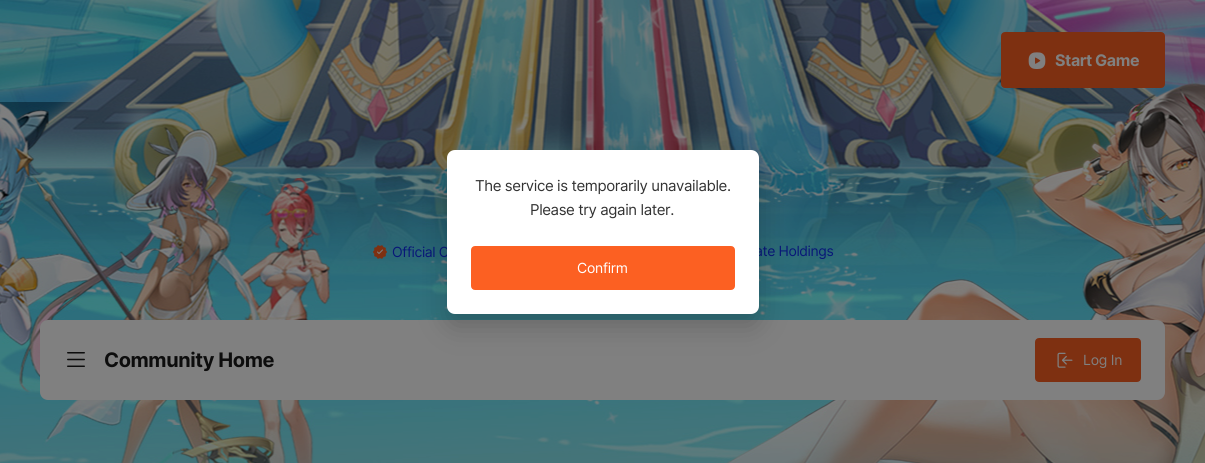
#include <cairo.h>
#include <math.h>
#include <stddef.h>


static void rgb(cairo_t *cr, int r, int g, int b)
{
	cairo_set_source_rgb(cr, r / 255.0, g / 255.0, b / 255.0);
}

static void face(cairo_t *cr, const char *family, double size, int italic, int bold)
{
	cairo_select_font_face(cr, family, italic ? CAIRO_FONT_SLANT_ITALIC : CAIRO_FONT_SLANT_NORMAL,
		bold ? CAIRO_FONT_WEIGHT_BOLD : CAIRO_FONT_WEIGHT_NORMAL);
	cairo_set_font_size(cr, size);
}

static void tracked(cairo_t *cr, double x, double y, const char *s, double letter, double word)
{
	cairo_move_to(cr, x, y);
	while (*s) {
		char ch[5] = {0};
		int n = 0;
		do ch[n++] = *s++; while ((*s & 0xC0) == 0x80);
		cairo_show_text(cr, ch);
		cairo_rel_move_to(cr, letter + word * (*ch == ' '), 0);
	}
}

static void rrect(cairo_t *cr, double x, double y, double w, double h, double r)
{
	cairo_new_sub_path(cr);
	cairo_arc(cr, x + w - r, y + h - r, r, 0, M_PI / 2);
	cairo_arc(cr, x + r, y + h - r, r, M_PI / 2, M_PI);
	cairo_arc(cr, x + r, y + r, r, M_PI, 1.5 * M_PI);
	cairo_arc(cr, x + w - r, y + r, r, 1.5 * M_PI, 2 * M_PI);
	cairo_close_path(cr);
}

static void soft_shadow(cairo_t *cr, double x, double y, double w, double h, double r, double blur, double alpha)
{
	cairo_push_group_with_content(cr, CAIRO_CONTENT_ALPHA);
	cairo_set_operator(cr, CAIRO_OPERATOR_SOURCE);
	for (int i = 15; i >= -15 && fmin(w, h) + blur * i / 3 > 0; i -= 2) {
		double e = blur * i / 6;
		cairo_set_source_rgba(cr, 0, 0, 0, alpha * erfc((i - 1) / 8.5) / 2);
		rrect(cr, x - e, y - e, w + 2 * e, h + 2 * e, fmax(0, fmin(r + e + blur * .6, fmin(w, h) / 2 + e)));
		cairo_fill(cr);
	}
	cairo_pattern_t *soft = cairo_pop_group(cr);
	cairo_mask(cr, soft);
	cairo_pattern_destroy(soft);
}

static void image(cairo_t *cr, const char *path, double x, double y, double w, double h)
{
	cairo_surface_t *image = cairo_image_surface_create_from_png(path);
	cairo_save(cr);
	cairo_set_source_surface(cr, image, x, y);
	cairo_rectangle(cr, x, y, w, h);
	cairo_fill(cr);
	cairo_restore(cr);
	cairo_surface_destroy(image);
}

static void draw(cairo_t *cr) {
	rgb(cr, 255, 255, 255);
	cairo_paint(cr);
	image(cr, "image0.png", 0, 0, 1205, 463);
	rgb(cr, 126, 48, 17);
	rrect(cr, 1002, 33, 162, 54, 3);
	cairo_fill_preserve(cr);
	cairo_stroke(cr);
	image(cr, "image1.png", 1028, 52, 18, 17);
	face(cr, "Inter", 16, 0, 1);
	rgb(cr, 128, 128, 128);
	tracked(cr, 1055, 66, "Start Game", -0.4, 0);
	cairo_new_path(cr);
	cairo_arc(cr, 380, 252, 4, 0, 2 * M_PI);
	cairo_fill(cr);
	image(cr, "image2.png", 373, 245, 14, 14);
	face(cr, "Inter", 14, 0, 0);
	rgb(cr, 8, 23, 120);
	tracked(cr, 392, 257, "Official C", -0.4, 0);
	tracked(cr, 755, 256, "ate Holdings", -0.4, 0);
	rgb(cr, 128, 128, 128);
	rrect(cr, 40, 320, 1125, 80, 8);
	cairo_fill(cr);
	image(cr, "image3.png", 67, 352, 18, 15);
	face(cr, "Inter", 20, 0, 1);
	rgb(cr, 13, 13, 13);
	tracked(cr, 104, 367, "Community Home", -0.4, 0);
	rgb(cr, 126, 48, 17);
	rrect(cr, 1036, 339, 104, 42, 3);
	cairo_fill_preserve(cr);
	cairo_stroke(cr);
	image(cr, "image4.png", 1057, 352, 16, 16);
	face(cr, "Inter", 14, 0, 0);
	rgb(cr, 128, 128, 128);
	tracked(cr, 1083, 365, "Log In", -0.25, 0);
	rgb(cr, 0, 0, 0);
	soft_shadow(cr, 447, 162, 312, 164, 8, 14, 0.2);
	rgb(cr, 255, 255, 255);
	cairo_new_path(cr);
	cairo_move_to(cr, 455, 150);
	cairo_line_to(cr, 751, 150);
	cairo_curve_to(cr, 755.5, 150, 759, 153.5, 759, 158);
	cairo_line_to(cr, 759, 246);
	cairo_line_to(cr, 447, 246);
	cairo_line_to(cr, 447, 158);
	cairo_curve_to(cr, 447, 153.5, 450.5, 150, 455, 150);
	cairo_close_path(cr);
	cairo_fill(cr);
	face(cr, "Inter", 15, 0, 0);
	rgb(cr, 51, 51, 51);
	tracked(cr, 475, 191, "The service is temporarily unavailable.", -0.4, 0);
	tracked(cr, 530, 215, "Please try again later.", -0.4, 0);
	rgb(cr, 255, 255, 255);
	cairo_new_path(cr);
	cairo_move_to(cr, 447, 230);
	cairo_line_to(cr, 759, 230);
	cairo_line_to(cr, 759, 306);
	cairo_curve_to(cr, 759, 310.5, 755.5, 314, 751, 314);
	cairo_line_to(cr, 455, 314);
	cairo_curve_to(cr, 450.5, 314, 447, 310.5, 447, 306);
	cairo_close_path(cr);
	cairo_fill(cr);
	rgb(cr, 252, 96, 34);
	rrect(cr, 472, 247, 262, 42, 3);
	cairo_fill_preserve(cr);
	cairo_stroke(cr);
	face(cr, "Inter", 14, 0, 0);
	rgb(cr, 255, 255, 255);
	tracked(cr, 577, 273, "Confirm", -0.25, 0);
}

int main(void) {
	cairo_surface_t *surface = cairo_image_surface_create(CAIRO_FORMAT_RGB24, 1205, 463);
	cairo_t *cr = cairo_create(surface);
	cairo_font_options_t *options = cairo_font_options_create();
	cairo_font_options_set_hint_metrics(options, CAIRO_HINT_METRICS_OFF);
	cairo_font_options_set_hint_style(options, CAIRO_HINT_STYLE_NONE);
	cairo_set_font_options(cr, options);
	cairo_set_miter_limit(cr, 4);
	draw(cr);
	cairo_surface_write_to_png(surface, "render.png");
	cairo_font_options_destroy(options);
	cairo_destroy(cr);
	cairo_surface_destroy(surface);
	return 0;
}
